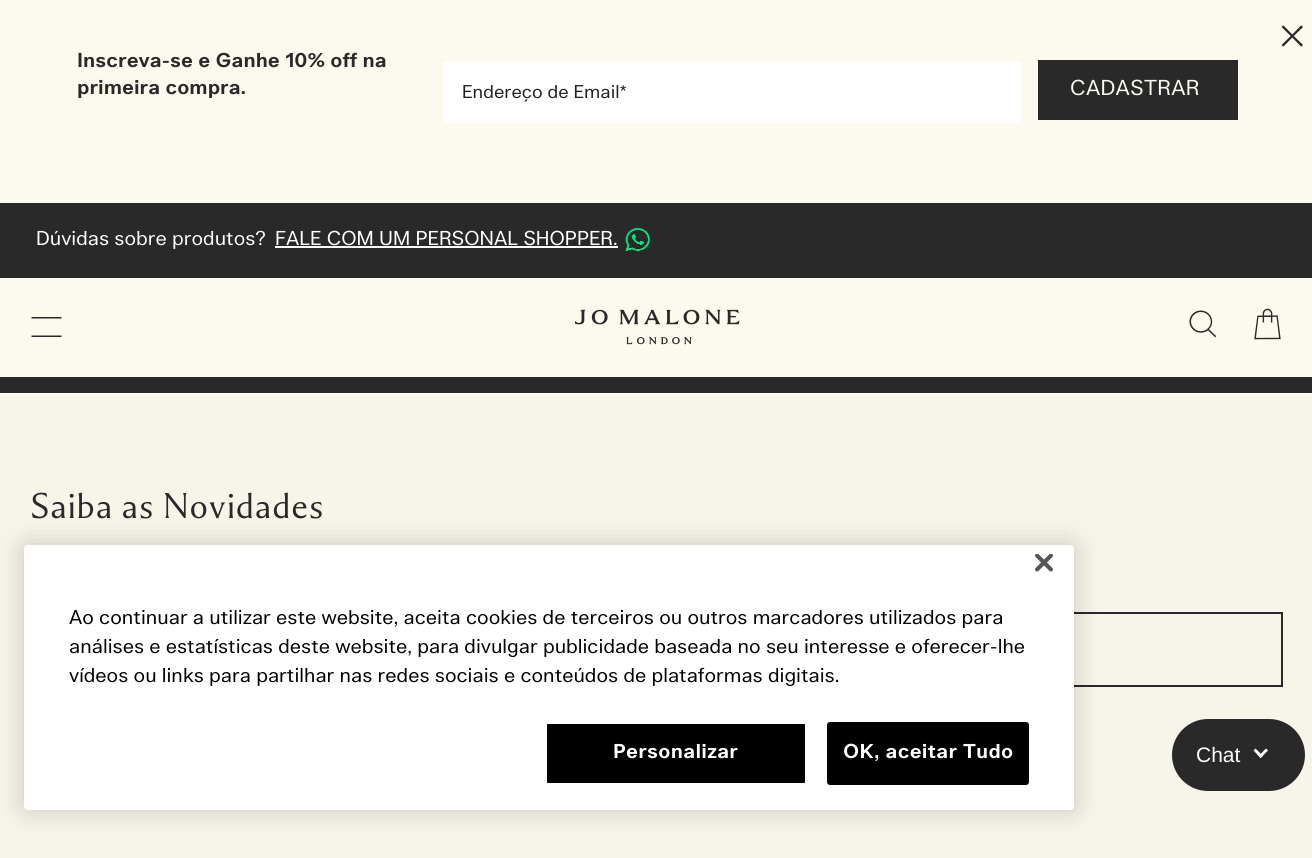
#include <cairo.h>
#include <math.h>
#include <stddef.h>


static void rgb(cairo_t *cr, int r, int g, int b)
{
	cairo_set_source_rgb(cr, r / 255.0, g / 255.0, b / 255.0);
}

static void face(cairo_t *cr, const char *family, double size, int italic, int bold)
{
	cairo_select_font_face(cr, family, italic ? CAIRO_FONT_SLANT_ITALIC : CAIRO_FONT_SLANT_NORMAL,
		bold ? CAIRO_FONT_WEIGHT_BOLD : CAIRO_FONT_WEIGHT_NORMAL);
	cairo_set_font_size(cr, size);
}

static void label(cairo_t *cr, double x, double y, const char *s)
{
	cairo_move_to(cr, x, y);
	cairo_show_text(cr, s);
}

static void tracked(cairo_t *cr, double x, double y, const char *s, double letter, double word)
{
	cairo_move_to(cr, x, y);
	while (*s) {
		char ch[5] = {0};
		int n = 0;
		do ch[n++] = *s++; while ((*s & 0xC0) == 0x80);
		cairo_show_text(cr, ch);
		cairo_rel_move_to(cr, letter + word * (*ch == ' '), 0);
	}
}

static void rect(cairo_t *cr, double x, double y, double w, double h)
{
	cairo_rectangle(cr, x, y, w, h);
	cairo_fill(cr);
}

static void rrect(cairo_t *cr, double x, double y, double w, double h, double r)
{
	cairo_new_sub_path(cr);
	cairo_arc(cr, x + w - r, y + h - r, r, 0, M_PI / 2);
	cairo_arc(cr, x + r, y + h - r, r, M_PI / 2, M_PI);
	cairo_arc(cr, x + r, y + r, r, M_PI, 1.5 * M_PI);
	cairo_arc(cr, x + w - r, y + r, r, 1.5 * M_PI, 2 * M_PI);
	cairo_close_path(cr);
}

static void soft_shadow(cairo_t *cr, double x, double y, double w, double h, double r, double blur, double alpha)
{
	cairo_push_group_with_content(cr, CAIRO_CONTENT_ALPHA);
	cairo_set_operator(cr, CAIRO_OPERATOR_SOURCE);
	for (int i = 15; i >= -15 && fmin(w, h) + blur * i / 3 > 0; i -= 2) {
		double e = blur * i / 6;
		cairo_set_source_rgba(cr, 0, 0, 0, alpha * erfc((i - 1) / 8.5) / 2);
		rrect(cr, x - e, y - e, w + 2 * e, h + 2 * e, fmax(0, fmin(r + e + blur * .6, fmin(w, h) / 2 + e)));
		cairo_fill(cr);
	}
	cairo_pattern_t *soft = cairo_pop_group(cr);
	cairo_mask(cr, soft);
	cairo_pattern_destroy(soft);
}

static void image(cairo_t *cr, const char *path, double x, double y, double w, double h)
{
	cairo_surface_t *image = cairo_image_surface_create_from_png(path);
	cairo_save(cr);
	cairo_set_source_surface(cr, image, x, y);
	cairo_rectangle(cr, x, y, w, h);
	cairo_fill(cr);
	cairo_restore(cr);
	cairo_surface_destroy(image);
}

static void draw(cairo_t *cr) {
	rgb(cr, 252, 249, 238);
	cairo_paint(cr);
	image(cr, "image0.png", 1281, 25, 22, 22);
	face(cr, "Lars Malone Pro", 19.5, 0, 1);
	rgb(cr, 41, 41, 41);
	label(cr, 77, 67, "Inscreva-se e Ganhe 10% off na");
	label(cr, 77, 94, "primeira compra.");
	rgb(cr, 255, 255, 255);
	rect(cr, 443, 62, 578, 61);
	face(cr, "Lars Malone Pro", 18, 0, 0);
	rgb(cr, 33, 33, 33);
	label(cr, 462, 98, "Endereço de Email*");
	rgb(cr, 41, 41, 41);
	rect(cr, 1038, 60, 200, 60);
	face(cr, "Lars Malone Pro", 21, 0, 0);
	rgb(cr, 252, 249, 238);
	tracked(cr, 1070, 95, "CADASTRAR", 0.25, 0);
	rgb(cr, 41, 41, 41);
	rect(cr, 0, 203, 1312, 75);
	face(cr, "Lars Malone Pro", 19.5, 0, 0);
	rgb(cr, 255, 255, 255);
	label(cr, 36, 245, "Dúvidas sobre produtos?");
	label(cr, 275, 245, "FALE COM UM PERSONAL SHOPPER.");
	rect(cr, 275, 246, 343, 2);
	image(cr, "image1.png", 625, 228, 25, 24);
	rgb(cr, 41, 41, 41);
	cairo_new_path(cr);
	cairo_move_to(cr, 31.5, 317);
	cairo_line_to(cr, 31.5, 318.5);
	cairo_line_to(cr, 61.5, 318.5);
	cairo_line_to(cr, 61.5, 317);
	cairo_close_path(cr);
	cairo_move_to(cr, 31.5, 337);
	cairo_line_to(cr, 61.5, 337);
	cairo_line_to(cr, 61.5, 335.5);
	cairo_line_to(cr, 31.5, 335.5);
	cairo_close_path(cr);
	cairo_fill(cr);
	image(cr, "image2.png", 575, 309, 165, 36);
	image(cr, "image3.png", 1189, 310, 28, 28);
	image(cr, "image4.png", 1254, 308, 27, 32);
	rect(cr, 0, 377, 1312, 16);
	rgb(cr, 247, 244, 233);
	rect(cr, 0, 395, 1312, 463);
	face(cr, "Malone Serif", 36, 0, 0);
	rgb(cr, 41, 41, 41);
	tracked(cr, 30, 518, "Saiba as Novidades", 0.4, 0);
	cairo_rectangle(cr, 31, 613, 1251, 73);
	cairo_stroke(cr);
	rrect(cr, 1173.5, 720.5, 130, 69, 34.5);
	cairo_fill_preserve(cr);
	cairo_set_line_width(cr, 3);
	cairo_stroke(cr);
	face(cr, "Liberation Sans", 21, 0, 0);
	rgb(cr, 255, 255, 255);
	label(cr, 1196, 762, "Chat");
	cairo_new_path(cr);
	cairo_move_to(cr, 1266, 748.5);
	cairo_line_to(cr, 1268, 750.5);
	cairo_line_to(cr, 1260.5, 758);
	cairo_line_to(cr, 1258.5, 756);
	cairo_close_path(cr);
	cairo_fill(cr);
	cairo_new_path(cr);
	cairo_move_to(cr, 1255.5, 748.5);
	cairo_line_to(cr, 1263, 756);
	cairo_line_to(cr, 1260.5, 758);
	cairo_line_to(cr, 1253.5, 750.5);
	cairo_close_path(cr);
	cairo_fill(cr);
	rgb(cr, 0, 0, 0);
	soft_shadow(cr, 24, 545, 1050, 265, 4, 13.5, 0.2);
	rgb(cr, 255, 255, 255);
	rrect(cr, 24, 545, 1050, 265, 4);
	cairo_fill(cr);
	image(cr, "image5.png", 1035, 554, 18, 18);
	face(cr, "Lars Malone Pro", 19.5, 0, 0);
	rgb(cr, 0, 0, 0);
	label(cr, 69, 624, "Ao continuar a utilizar este website, aceita cookies de terceiros ou outros marcadores utilizados para");
	label(cr, 69, 653, "análises e estatísticas deste website, para divulgar publicidade baseada no seu interesse e oferecer-lhe");
	label(cr, 69, 682, "vídeos ou links para partilhar nas redes sociais e conteúdos de plataformas digitais.");
	rrect(cr, 546, 723, 260, 61, 2);
	cairo_fill_preserve(cr);
	rgb(cr, 255, 255, 255);
	cairo_set_line_width(cr, 2);
	cairo_stroke(cr);
	face(cr, "Lars Malone Pro", 19.5, 0, 1);
	tracked(cr, 613, 758, "Personalizar", 0.25, 0);
	rgb(cr, 0, 0, 0);
	rrect(cr, 828, 723, 200, 61, 2);
	cairo_fill_preserve(cr);
	cairo_stroke(cr);
	rgb(cr, 255, 255, 255);
	tracked(cr, 843, 758, "OK, aceitar Tudo", 0.25, 0);
}

int main(void) {
	cairo_surface_t *surface = cairo_image_surface_create(CAIRO_FORMAT_RGB24, 1312, 858);
	cairo_t *cr = cairo_create(surface);
	cairo_font_options_t *options = cairo_font_options_create();
	cairo_font_options_set_hint_metrics(options, CAIRO_HINT_METRICS_OFF);
	cairo_font_options_set_hint_style(options, CAIRO_HINT_STYLE_NONE);
	cairo_set_font_options(cr, options);
	cairo_set_miter_limit(cr, 4);
	draw(cr);
	cairo_surface_write_to_png(surface, "render.png");
	cairo_font_options_destroy(options);
	cairo_destroy(cr);
	cairo_surface_destroy(surface);
	return 0;
}
